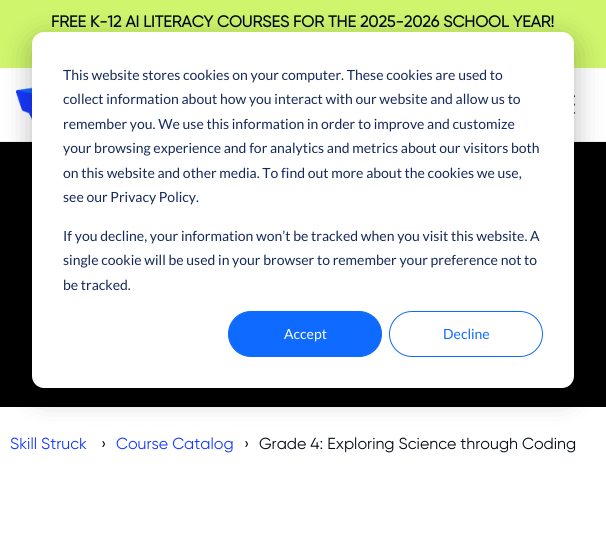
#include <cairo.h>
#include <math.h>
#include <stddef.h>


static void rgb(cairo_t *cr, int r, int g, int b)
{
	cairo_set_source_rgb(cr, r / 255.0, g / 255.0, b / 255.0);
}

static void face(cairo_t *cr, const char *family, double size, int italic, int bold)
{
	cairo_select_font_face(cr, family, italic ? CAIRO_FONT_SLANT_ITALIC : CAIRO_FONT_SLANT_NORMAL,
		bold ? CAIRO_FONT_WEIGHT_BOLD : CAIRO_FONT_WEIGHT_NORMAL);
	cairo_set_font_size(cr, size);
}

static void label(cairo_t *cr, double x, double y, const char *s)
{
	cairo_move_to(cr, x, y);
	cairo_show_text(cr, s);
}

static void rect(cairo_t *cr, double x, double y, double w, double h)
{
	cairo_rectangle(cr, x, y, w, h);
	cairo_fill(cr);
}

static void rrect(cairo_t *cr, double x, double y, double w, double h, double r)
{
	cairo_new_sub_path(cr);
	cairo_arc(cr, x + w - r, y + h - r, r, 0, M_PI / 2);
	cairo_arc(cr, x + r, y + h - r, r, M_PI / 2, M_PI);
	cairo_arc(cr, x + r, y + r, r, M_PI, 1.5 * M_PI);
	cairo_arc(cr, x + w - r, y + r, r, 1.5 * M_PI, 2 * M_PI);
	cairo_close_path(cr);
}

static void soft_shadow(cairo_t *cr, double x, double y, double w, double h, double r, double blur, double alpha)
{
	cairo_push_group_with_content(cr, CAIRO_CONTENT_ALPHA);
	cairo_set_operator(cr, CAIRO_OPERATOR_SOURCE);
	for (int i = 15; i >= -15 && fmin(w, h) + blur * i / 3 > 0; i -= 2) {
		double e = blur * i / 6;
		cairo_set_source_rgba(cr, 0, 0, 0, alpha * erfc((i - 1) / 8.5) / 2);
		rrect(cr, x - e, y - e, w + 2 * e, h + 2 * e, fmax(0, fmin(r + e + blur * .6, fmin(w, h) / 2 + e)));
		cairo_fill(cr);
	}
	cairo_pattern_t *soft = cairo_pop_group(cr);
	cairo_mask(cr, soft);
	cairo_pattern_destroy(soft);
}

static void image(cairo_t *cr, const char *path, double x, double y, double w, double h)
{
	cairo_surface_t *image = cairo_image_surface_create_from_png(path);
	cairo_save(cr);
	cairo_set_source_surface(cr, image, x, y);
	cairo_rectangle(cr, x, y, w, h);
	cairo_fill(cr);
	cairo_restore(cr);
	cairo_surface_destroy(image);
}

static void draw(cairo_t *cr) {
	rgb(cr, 255, 255, 255);
	cairo_paint(cr);
	rgb(cr, 206, 245, 108);
	rect(cr, 0, 0, 606, 68);
	face(cr, "Gilroy", 16, 0, 1);
	rgb(cr, 2, 11, 22);
	label(cr, 51, 27, "FREE K-12 AI LITERACY COURSES FOR THE 2025-2026 SCHOOL YEAR!");
	rgb(cr, 237, 239, 242);
	rect(cr, 0, 141, 606, 1);
	image(cr, "image0.png", 16, 87, 16, 33);
	image(cr, "image1.png", 574, 95, 1, 19);
	rgb(cr, 0, 0, 0);
	rect(cr, 0, 142, 606, 265);
	face(cr, "Gilroy", 16, 0, 0);
	rgb(cr, 23, 56, 255);
	label(cr, 10, 449, "Skill Struck");
	rgb(cr, 2, 11, 22);
	label(cr, 101, 449, "›");
	rgb(cr, 23, 56, 255);
	label(cr, 116, 449, "Course Catalog");
	rgb(cr, 2, 11, 22);
	label(cr, 244, 449, "›");
	label(cr, 259, 449, "Grade 4: Exploring Science through Coding");
	rgb(cr, 0, 0, 0);
	soft_shadow(cr, 32, 40, 542, 356, 12, 14, 0.28);
	rgb(cr, 255, 255, 255);
	rrect(cr, 32, 32, 542, 356, 12);
	cairo_fill(cr);
	face(cr, "Lato", 14, 0, 0);
	rgb(cr, 21, 41, 90);
	label(cr, 63, 80, "This website stores cookies on your computer. These cookies are used to");
	label(cr, 63, 104, "collect information about how you interact with our website and allow us to");
	label(cr, 63, 129, "remember you. We use this information in order to improve and customize");
	label(cr, 63, 153, "your browsing experience and for analytics and metrics about our visitors both");
	label(cr, 63, 178, "on this website and other media. To find out more about the cookies we use,");
	label(cr, 63, 202, "see our Privacy Policy.");
	label(cr, 63, 241, "If you decline, your information won’t be tracked when you visit this website. A");
	label(cr, 63, 265, "single cookie will be used in your browser to remember your preference not to");
	label(cr, 63, 290, "be tracked.");
	rgb(cr, 15, 107, 255);
	rrect(cr, 228.5, 311.5, 153, 45, 22.5);
	cairo_fill_preserve(cr);
	cairo_set_line_width(cr, 1);
	cairo_stroke(cr);
	rgb(cr, 255, 255, 255);
	label(cr, 284, 339, "Accept");
	rrect(cr, 389.5, 311.5, 153, 45, 22.5);
	rgb(cr, 15, 107, 255);
	cairo_stroke(cr);
	label(cr, 443, 339, "Decline");
}

int main(void) {
	cairo_surface_t *surface = cairo_image_surface_create(CAIRO_FORMAT_RGB24, 606, 538);
	cairo_t *cr = cairo_create(surface);
	cairo_font_options_t *options = cairo_font_options_create();
	cairo_font_options_set_hint_metrics(options, CAIRO_HINT_METRICS_OFF);
	cairo_font_options_set_hint_style(options, CAIRO_HINT_STYLE_NONE);
	cairo_set_font_options(cr, options);
	cairo_set_miter_limit(cr, 4);
	draw(cr);
	cairo_surface_write_to_png(surface, "render.png");
	cairo_font_options_destroy(options);
	cairo_destroy(cr);
	cairo_surface_destroy(surface);
	return 0;
}
